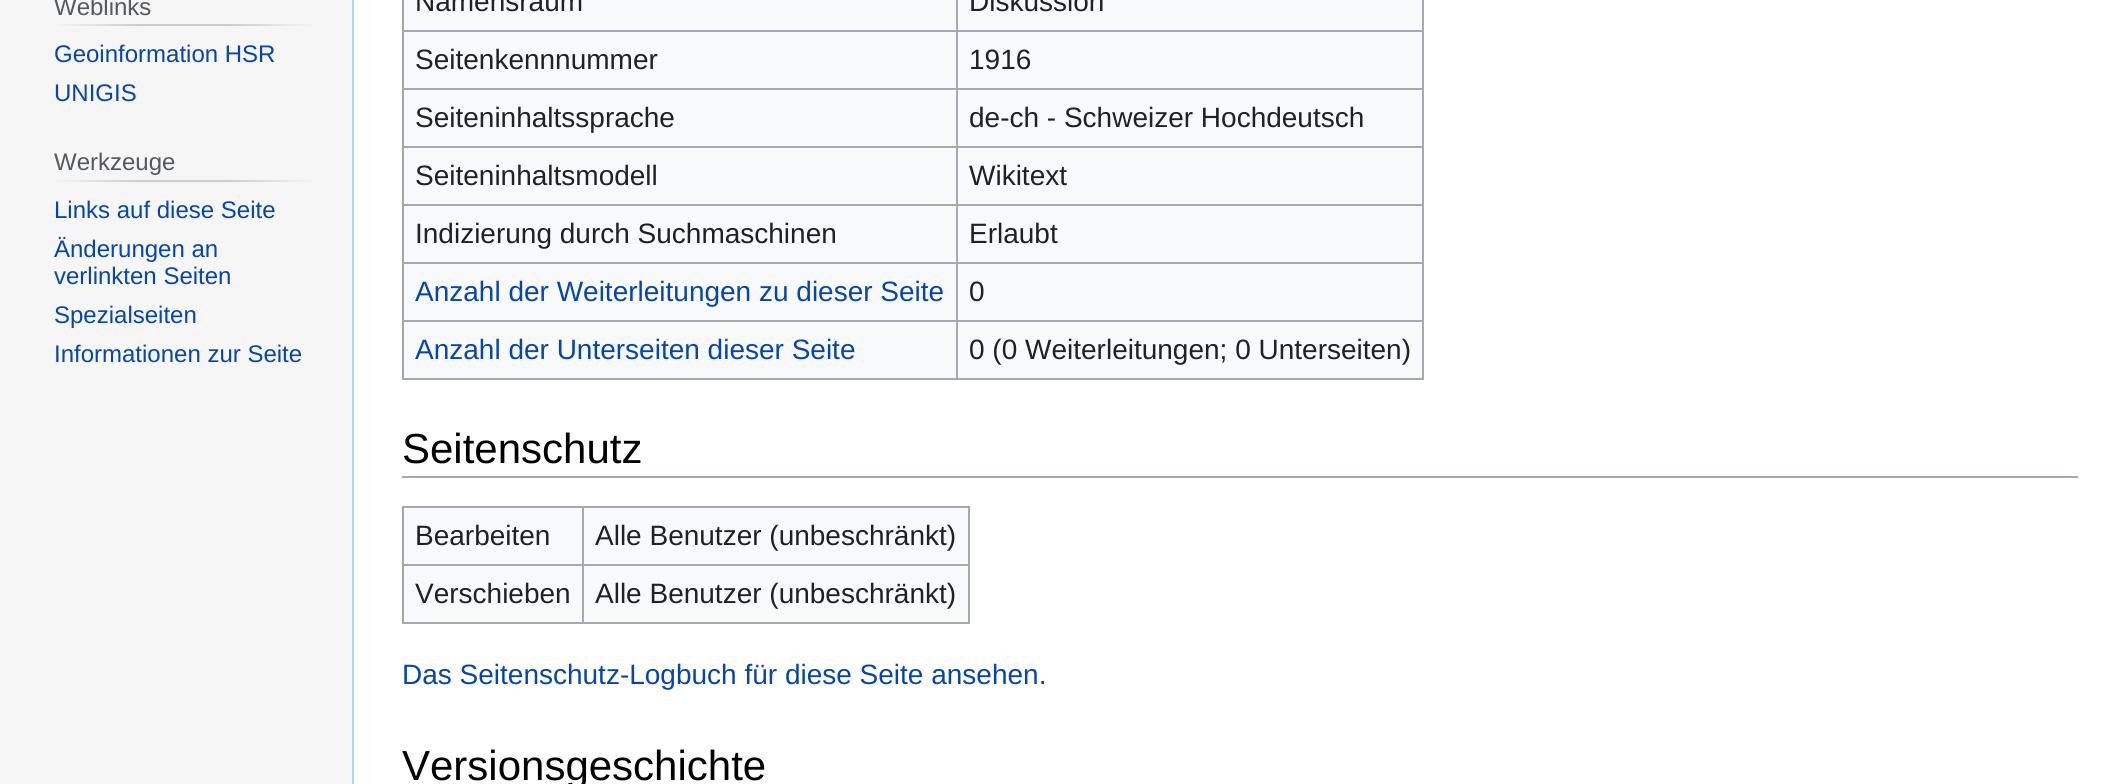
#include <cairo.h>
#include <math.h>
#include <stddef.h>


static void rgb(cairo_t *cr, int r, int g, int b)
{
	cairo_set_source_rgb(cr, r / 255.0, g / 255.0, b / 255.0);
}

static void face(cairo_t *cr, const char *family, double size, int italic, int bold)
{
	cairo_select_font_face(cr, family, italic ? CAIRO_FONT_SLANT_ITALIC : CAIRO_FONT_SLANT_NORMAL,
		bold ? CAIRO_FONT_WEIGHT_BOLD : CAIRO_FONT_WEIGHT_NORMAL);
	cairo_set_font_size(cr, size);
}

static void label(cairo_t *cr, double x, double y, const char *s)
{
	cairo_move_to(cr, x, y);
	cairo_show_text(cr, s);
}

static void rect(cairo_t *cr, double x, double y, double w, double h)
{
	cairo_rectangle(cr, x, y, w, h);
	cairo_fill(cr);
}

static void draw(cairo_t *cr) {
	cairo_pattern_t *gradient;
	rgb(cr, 246, 246, 246);
	cairo_paint(cr);
	gradient = cairo_pattern_create_linear(54, 25, 316, 25);
	cairo_pattern_add_color_stop_rgba(gradient, 0, 0.965, 0.965, 0.965, 1);
	cairo_pattern_add_color_stop_rgba(gradient, 0.33, 0.784, 0.8, 0.82, 1);
	cairo_pattern_add_color_stop_rgba(gradient, 0.66, 0.784, 0.8, 0.82, 1);
	cairo_pattern_add_color_stop_rgba(gradient, 1, 0.965, 0.965, 0.965, 1);
	cairo_set_source(cr, gradient);
	cairo_pattern_destroy(gradient);
	rect(cr, 54, 24, 262, 2);
	face(cr, "Liberation Sans", 24, 0, 0);
	rgb(cr, 84, 89, 93);
	label(cr, 54, 15, "Weblinks");
	rgb(cr, 6, 69, 173);
	label(cr, 54, 62, "Geoinformation HSR");
	label(cr, 54, 101, "UNIGIS");
	gradient = cairo_pattern_create_linear(54, 181, 316, 181);
	cairo_pattern_add_color_stop_rgba(gradient, 0, 0.965, 0.965, 0.965, 1);
	cairo_pattern_add_color_stop_rgba(gradient, 0.33, 0.784, 0.8, 0.82, 1);
	cairo_pattern_add_color_stop_rgba(gradient, 0.66, 0.784, 0.8, 0.82, 1);
	cairo_pattern_add_color_stop_rgba(gradient, 1, 0.965, 0.965, 0.965, 1);
	cairo_set_source(cr, gradient);
	cairo_pattern_destroy(gradient);
	rect(cr, 54, 180, 262, 2);
	rgb(cr, 84, 89, 93);
	label(cr, 54, 170, "Werkzeuge");
	rgb(cr, 6, 69, 173);
	label(cr, 54, 218, "Links auf diese Seite");
	label(cr, 54, 257, "Änderungen an");
	label(cr, 54, 284, "verlinkten Seiten");
	label(cr, 54, 323, "Spezialseiten");
	label(cr, 54, 362, "Informationen zur Seite");
	rgb(cr, 255, 255, 255);
	rect(cr, 354, 0, 1771, 784);
	rgb(cr, 167, 215, 249);
	rect(cr, 352, 0, 2, 784);
	rgb(cr, 248, 249, 250);
	rect(cr, 404, 0, 1018, 378);
	rgb(cr, 162, 169, 177);
	rect(cr, 1422, 0, 2, 380);
	rect(cr, 402, 378, 1022, 2);
	rect(cr, 402, 0, 2, 380);
	face(cr, "Liberation Sans", 28, 0, 0);
	rgb(cr, 32, 33, 34);
	label(cr, 415, 11, "Namensraum");
	rgb(cr, 162, 169, 177);
	rect(cr, 956, 30, 468, 2);
	rect(cr, 956, 88, 468, 2);
	rect(cr, 956, 146, 468, 2);
	rect(cr, 956, 204, 468, 2);
	rect(cr, 956, 262, 468, 2);
	rect(cr, 956, 320, 468, 2);
	rect(cr, 956, 320, 2, 60);
	rect(cr, 402, 320, 556, 2);
	rect(cr, 956, 262, 2, 60);
	rect(cr, 402, 262, 556, 2);
	rect(cr, 956, 204, 2, 60);
	rect(cr, 402, 204, 556, 2);
	rect(cr, 956, 146, 2, 60);
	rect(cr, 402, 146, 556, 2);
	rect(cr, 956, 88, 2, 60);
	rect(cr, 402, 88, 556, 2);
	rect(cr, 956, 30, 2, 60);
	rect(cr, 402, 30, 556, 2);
	rect(cr, 956, 0, 2, 32);
	rgb(cr, 32, 33, 34);
	label(cr, 969, 11, "Diskussion");
	label(cr, 415, 69, "Seitenkennnummer");
	label(cr, 969, 69, "1916");
	label(cr, 415, 127, "Seiteninhaltssprache");
	label(cr, 969, 127, "de-ch - Schweizer Hochdeutsch");
	label(cr, 415, 185, "Seiteninhaltsmodell");
	label(cr, 969, 185, "Wikitext");
	label(cr, 415, 243, "Indizierung durch Suchmaschinen");
	label(cr, 969, 243, "Erlaubt");
	rgb(cr, 6, 69, 173);
	label(cr, 415, 301, "Anzahl der Weiterleitungen zu dieser Seite");
	rgb(cr, 32, 33, 34);
	label(cr, 969, 301, "0");
	rgb(cr, 6, 69, 173);
	label(cr, 415, 359, "Anzahl der Unterseiten dieser Seite");
	rgb(cr, 32, 33, 34);
	label(cr, 969, 359, "0 (0 Weiterleitungen; 0 Unterseiten)");
	rgb(cr, 162, 169, 177);
	rect(cr, 402, 476, 1676, 2);
	face(cr, "Liberation Sans", 42, 0, 0);
	rgb(cr, 0, 0, 0);
	label(cr, 402, 463, "Seitenschutz");
	rgb(cr, 248, 249, 250);
	rect(cr, 404, 508, 564, 114);
	rgb(cr, 162, 169, 177);
	rect(cr, 402, 506, 568, 2);
	rect(cr, 968, 506, 2, 118);
	rect(cr, 402, 622, 568, 2);
	rect(cr, 402, 506, 2, 118);
	face(cr, "Liberation Sans", 28, 0, 0);
	rgb(cr, 32, 33, 34);
	label(cr, 415, 545, "Bearbeiten");
	rgb(cr, 162, 169, 177);
	rect(cr, 582, 564, 388, 2);
	rect(cr, 582, 564, 2, 60);
	rect(cr, 402, 564, 182, 2);
	rect(cr, 582, 506, 2, 60);
	rgb(cr, 32, 33, 34);
	label(cr, 595, 545, "Alle Benutzer (unbeschränkt)");
	label(cr, 415, 603, "Verschieben");
	label(cr, 595, 603, "Alle Benutzer (unbeschränkt)");
	rgb(cr, 6, 69, 173);
	label(cr, 402, 684, "Das Seitenschutz-Logbuch für diese Seite ansehen.");
	face(cr, "Liberation Sans", 42, 0, 0);
	rgb(cr, 0, 0, 0);
	label(cr, 402, 780, "Versionsgeschichte");
}

int main(void) {
	cairo_surface_t *surface = cairo_image_surface_create(CAIRO_FORMAT_RGB24, 2125, 784);
	cairo_t *cr = cairo_create(surface);
	cairo_font_options_t *options = cairo_font_options_create();
	cairo_font_options_set_hint_metrics(options, CAIRO_HINT_METRICS_OFF);
	cairo_font_options_set_hint_style(options, CAIRO_HINT_STYLE_NONE);
	cairo_set_font_options(cr, options);
	cairo_set_miter_limit(cr, 4);
	draw(cr);
	cairo_surface_write_to_png(surface, "render.png");
	cairo_font_options_destroy(options);
	cairo_destroy(cr);
	cairo_surface_destroy(surface);
	return 0;
}
